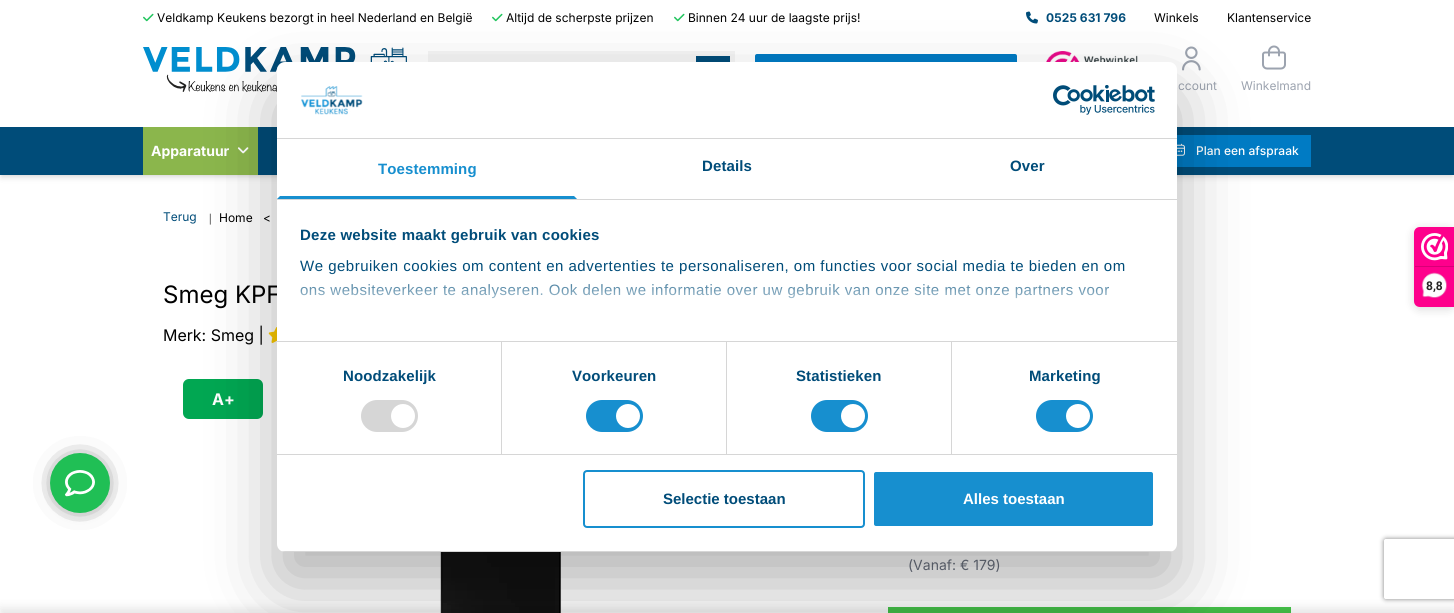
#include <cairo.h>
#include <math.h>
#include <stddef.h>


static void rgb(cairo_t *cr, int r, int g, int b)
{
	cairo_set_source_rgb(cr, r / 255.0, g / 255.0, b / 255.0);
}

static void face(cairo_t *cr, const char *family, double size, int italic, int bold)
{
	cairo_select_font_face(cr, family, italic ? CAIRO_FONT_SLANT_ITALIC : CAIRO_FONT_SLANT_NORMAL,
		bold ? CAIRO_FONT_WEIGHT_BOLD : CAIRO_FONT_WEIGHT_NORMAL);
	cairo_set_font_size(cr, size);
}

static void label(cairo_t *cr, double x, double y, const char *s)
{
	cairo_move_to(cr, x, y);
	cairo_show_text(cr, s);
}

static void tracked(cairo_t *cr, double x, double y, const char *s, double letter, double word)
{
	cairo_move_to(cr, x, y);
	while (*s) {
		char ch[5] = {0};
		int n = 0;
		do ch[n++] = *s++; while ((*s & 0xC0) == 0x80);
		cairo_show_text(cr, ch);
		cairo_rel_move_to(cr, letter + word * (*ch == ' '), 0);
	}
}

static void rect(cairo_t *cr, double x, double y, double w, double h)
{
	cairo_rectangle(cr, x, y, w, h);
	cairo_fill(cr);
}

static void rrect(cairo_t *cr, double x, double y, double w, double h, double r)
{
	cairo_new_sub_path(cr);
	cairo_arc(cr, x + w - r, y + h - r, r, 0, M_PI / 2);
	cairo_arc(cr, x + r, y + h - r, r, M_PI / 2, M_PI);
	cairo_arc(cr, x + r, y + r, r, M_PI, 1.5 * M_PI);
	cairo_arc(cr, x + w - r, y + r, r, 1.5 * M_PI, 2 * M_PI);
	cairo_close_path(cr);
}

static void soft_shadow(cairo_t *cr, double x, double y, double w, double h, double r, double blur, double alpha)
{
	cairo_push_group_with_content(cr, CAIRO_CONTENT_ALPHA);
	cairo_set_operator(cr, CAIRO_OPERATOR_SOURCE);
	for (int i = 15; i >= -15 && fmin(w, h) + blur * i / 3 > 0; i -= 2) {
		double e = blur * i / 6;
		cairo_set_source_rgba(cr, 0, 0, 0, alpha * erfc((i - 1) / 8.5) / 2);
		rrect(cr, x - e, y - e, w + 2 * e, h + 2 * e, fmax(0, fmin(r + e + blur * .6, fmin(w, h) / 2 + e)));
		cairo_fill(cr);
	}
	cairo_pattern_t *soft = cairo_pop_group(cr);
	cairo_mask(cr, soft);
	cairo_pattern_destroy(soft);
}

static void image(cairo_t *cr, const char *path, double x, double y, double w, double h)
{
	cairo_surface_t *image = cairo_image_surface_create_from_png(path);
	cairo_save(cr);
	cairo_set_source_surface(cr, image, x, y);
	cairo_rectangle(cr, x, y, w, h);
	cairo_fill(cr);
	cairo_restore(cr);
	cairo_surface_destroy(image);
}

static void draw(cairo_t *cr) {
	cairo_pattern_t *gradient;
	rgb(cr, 255, 255, 255);
	cairo_paint(cr);
	image(cr, "image0.png", 143, 13, 11, 9);
	face(cr, "Inter", 12, 0, 0);
	rgb(cr, 0, 0, 0);
	label(cr, 157, 22, "Veldkamp Keukens bezorgt in heel Nederland en België");
	image(cr, "image0.png", 492, 13, 11, 9);
	label(cr, 506, 22, "Altijd de scherpste prijzen");
	image(cr, "image0.png", 674, 13, 11, 9);
	label(cr, 688, 22, "Binnen 24 uur de laagste prijs!");
	image(cr, "image1.png", 1026, 11, 12, 13);
	face(cr, "Inter", 12, 0, 1);
	rgb(cr, 0, 76, 121);
	label(cr, 1046, 22, "0525 631 796");
	face(cr, "Inter", 12, 0, 0);
	rgb(cr, 0, 0, 0);
	label(cr, 1154, 22, "Winkels");
	label(cr, 1227, 22, "Klantenservice");
	image(cr, "image2.png", 143, 47, 264, 45);
	rgb(cr, 244, 244, 244);
	rect(cr, 428, 51, 307, 11);
	rgb(cr, 0, 76, 121);
	rect(cr, 696, 56, 34, 6);
	rgb(cr, 0, 123, 196);
	rrect(cr, 755, 54, 262, 36, 2);
	cairo_fill(cr);
	image(cr, "image3.png", 1046, 51, 92, 11);
	image(cr, "image4.png", 1182, 46, 19, 25);
	rgb(cr, 156, 163, 175);
	label(cr, 1178, 90, "ccount");
	image(cr, "image5.png", 1262, 45, 24, 25);
	label(cr, 1241, 90, "Winkelmand");
	rgb(cr, 0, 0, 0);
	soft_shadow(cr, 2, 131, 1450, 44, 0, 2, 0.1);
	soft_shadow(cr, 1, 132, 1452, 46, 0, 3, 0.1);
	rgb(cr, 0, 76, 121);
	rect(cr, 0, 127, 1454, 48);
	rgb(cr, 139, 182, 76);
	rect(cr, 143, 127, 115, 48);
	face(cr, "Inter", 14, 0, 1);
	rgb(cr, 255, 255, 255);
	label(cr, 151, 156, "Apparatuur");
	image(cr, "image6.png", 237, 147, 12, 7);
	rgb(cr, 0, 123, 196);
	rect(cr, 1177, 135, 134, 32);
	image(cr, "image7.png", 1177, 143, 8, 13);
	face(cr, "Inter Medium", 12, 0, 0);
	rgb(cr, 255, 255, 255);
	label(cr, 1196, 155, "Plan een afspraak");
	face(cr, "Inter", 12, 0, 0);
	rgb(cr, 0, 76, 121);
	label(cr, 163, 221, "Terug");
	face(cr, "Liberation Serif", 12, 0, 0);
	rgb(cr, 0, 0, 0);
	label(cr, 209, 222, "|");
	face(cr, "Inter", 12, 0, 0);
	label(cr, 219, 222, "Home");
	label(cr, 263, 222, "<");
	face(cr, "Inter", 24, 0, 0);
	label(cr, 163, 303, "Smeg KPF");
	face(cr, "Inter", 16, 0, 0);
	label(cr, 163, 341, "Merk: Smeg |");
	image(cr, "image8.png", 268, 327, 9, 16);
	rgb(cr, 1, 167, 82);
	rrect(cr, 183, 379, 80, 40, 6);
	cairo_fill(cr);
	face(cr, "Inter", 16, 0, 1);
	rgb(cr, 255, 255, 255);
	label(cr, 212, 405, "A+");
	image(cr, "image9.png", 440, 552, 123, 61);
	face(cr, "Inter", 14, 0, 0);
	rgb(cr, 107, 114, 128);
	label(cr, 908, 570, "(Vanaf: € 179)");
	rgb(cr, 70, 196, 74);
	rect(cr, 888, 607, 403, 6);
	rgb(cr, 0, 0, 0);
	soft_shadow(cr, 0, 608, 1454, 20, 0, 5, 0.1);
	soft_shadow(cr, 277, 94, 900, 490, 8, 34, 0.3);
	rgb(cr, 255, 255, 255);
	rrect(cr, 277, 62, 900, 490, 8);
	cairo_fill(cr);
	rgb(cr, 214, 214, 214);
	rect(cr, 277, 138, 900, 1);
	image(cr, "image10.png", 301, 86, 62, 29);
	image(cr, "image11.png", 1053, 85, 102, 30);
	rect(cr, 277, 199, 900, 1);
	rgb(cr, 23, 143, 207);
	cairo_new_path(cr);
	cairo_move_to(cr, 577, 199);
	cairo_line_to(cr, 277, 199);
	cairo_line_to(cr, 280, 196);
	cairo_line_to(cr, 574, 196);
	cairo_close_path(cr);
	cairo_fill(cr);
	face(cr, "Liberation Sans", 15, 0, 1);
	tracked(cr, 378, 174, "Toestemming", 0.1, 0);
	rgb(cr, 0, 76, 121);
	tracked(cr, 702, 171, "Details", 0.1, 0);
	tracked(cr, 1010, 171, "Over", 0.1, 0);
	rgb(cr, 214, 214, 214);
	rect(cr, 277, 341, 900, 1);
	rgb(cr, 0, 76, 121);
	tracked(cr, 300, 240, "Deze website maakt gebruik van cookies", 0.25, 0);
	face(cr, "Liberation Sans", 15, 0, 0);
	tracked(cr, 300, 271, "We gebruiken cookies om content en advertenties te personaliseren, om functies voor social media te bieden en om", 0.5, 0);
	tracked(cr, 300, 295, "ons websiteverkeer te analyseren. Ook delen we informatie over uw gebruik van onze site met onze partners voor", 0.5, 0);
	gradient = cairo_pattern_create_linear(717, 341, 717, 271);
	cairo_pattern_add_color_stop_rgba(gradient, 0, 1, 1, 1, 1);
	cairo_pattern_add_color_stop_rgba(gradient, 0.5, 1, 1, 1, 0.8);
	cairo_pattern_add_color_stop_rgba(gradient, 1, 1, 1, 1, 0);
	cairo_set_source(cr, gradient);
	cairo_pattern_destroy(gradient);
	rect(cr, 300, 272, 809, 27);
	rgb(cr, 214, 214, 214);
	rect(cr, 277, 454, 900, 1);
	rect(cr, 501, 342, 1, 112);
	face(cr, "Liberation Sans", 15, 0, 1);
	rgb(cr, 0, 76, 121);
	tracked(cr, 343, 381, "Noodzakelijk", 0.1, 0);
	rgb(cr, 214, 214, 214);
	rrect(cr, 361, 400, 57, 32, 16);
	cairo_fill(cr);
	rgb(cr, 255, 255, 255);
	cairo_arc(cr, 403, 416, 12, 0, 2 * M_PI);
	cairo_fill(cr);
	rgb(cr, 214, 214, 214);
	rect(cr, 726, 342, 1, 112);
	rgb(cr, 0, 76, 121);
	tracked(cr, 572, 381, "Voorkeuren", 0.1, 0);
	rgb(cr, 23, 143, 207);
	rrect(cr, 586, 400, 57, 32, 16);
	cairo_fill(cr);
	rgb(cr, 255, 255, 255);
	cairo_arc(cr, 628, 416, 12, 0, 2 * M_PI);
	cairo_fill(cr);
	rgb(cr, 214, 214, 214);
	rect(cr, 951, 342, 1, 112);
	rgb(cr, 0, 76, 121);
	tracked(cr, 796, 381, "Statistieken", 0.1, 0);
	rgb(cr, 23, 143, 207);
	rrect(cr, 811, 400, 57, 32, 16);
	cairo_fill(cr);
	rgb(cr, 255, 255, 255);
	cairo_arc(cr, 853, 416, 12, 0, 2 * M_PI);
	cairo_fill(cr);
	rgb(cr, 0, 76, 121);
	tracked(cr, 1029, 381, "Marketing", 0.1, 0);
	rgb(cr, 23, 143, 207);
	rrect(cr, 1036, 400, 57, 32, 16);
	cairo_fill(cr);
	rgb(cr, 255, 255, 255);
	cairo_arc(cr, 1078, 416, 12, 0, 2 * M_PI);
	cairo_fill(cr);
	cairo_save(cr);
	rrect(cr, 277, 62, 900, 490, 8);
	cairo_clip(cr);
	rgb(cr, 214, 214, 214);
	rect(cr, 277, 551, 900, 1);
	cairo_restore(cr);
	rrect(cr, 584, 471, 280, 56, 3);
	rgb(cr, 23, 143, 207);
	cairo_stroke(cr);
	rgb(cr, 0, 76, 121);
	label(cr, 663, 504, "Selectie toestaan");
	rgb(cr, 23, 143, 207);
	rrect(cr, 873, 471, 281, 56, 3);
	cairo_fill_preserve(cr);
	rgb(cr, 255, 255, 255);
	cairo_stroke(cr);
	label(cr, 963, 504, "Alles toestaan");
	rgb(cr, 0, 0, 0);
	soft_shadow(cr, 1414, 229, 40, 80, 6, 5, 0.15);
	rgb(cr, 254, 0, 140);
	cairo_new_path(cr);
	cairo_move_to(cr, 1420, 227);
	cairo_line_to(cr, 1454, 227);
	cairo_line_to(cr, 1454, 307);
	cairo_line_to(cr, 1420, 307);
	cairo_curve_to(cr, 1416.5, 307, 1414, 304.5, 1414, 301);
	cairo_line_to(cr, 1414, 233);
	cairo_curve_to(cr, 1414, 229.5, 1416.5, 227, 1420, 227);
	cairo_close_path(cr);
	cairo_fill(cr);
	image(cr, "image12.png", 1421, 233, 27, 28);
	rgb(cr, 216, 0, 119);
	rect(cr, 1415, 266, 39, 1);
	image(cr, "image13.png", 1421, 272, 26, 26);
	face(cr, "Roboto", 12, 0, 1);
	rgb(cr, 39, 38, 38);
	label(cr, 1426, 290, "8,8");
	image(cr, "image14.png", 33, 436, 94, 94);
	cairo_save(cr);
	cairo_set_fill_rule(cr, CAIRO_FILL_RULE_EVEN_ODD);
	cairo_new_path(cr);
	cairo_move_to(cr, 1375, 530);
	cairo_line_to(cr, 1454, 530);
	cairo_line_to(cr, 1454, 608);
	cairo_line_to(cr, 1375, 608);
	cairo_close_path(cr);
	cairo_move_to(cr, 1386, 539);
	cairo_line_to(cr, 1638, 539);
	cairo_curve_to(cr, 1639, 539, 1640, 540, 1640, 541);
	cairo_line_to(cr, 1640, 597);
	cairo_curve_to(cr, 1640, 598, 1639, 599, 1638, 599);
	cairo_line_to(cr, 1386, 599);
	cairo_curve_to(cr, 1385, 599, 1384, 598, 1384, 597);
	cairo_line_to(cr, 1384, 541);
	cairo_curve_to(cr, 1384, 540, 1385, 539, 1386, 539);
	cairo_close_path(cr);
	cairo_clip(cr);
	rgb(cr, 128, 128, 128);
	soft_shadow(cr, 1384, 539, 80, 60, 2, 2.5, 1);
	cairo_restore(cr);
}

int main(void) {
	cairo_surface_t *surface = cairo_image_surface_create(CAIRO_FORMAT_RGB24, 1454, 613);
	cairo_t *cr = cairo_create(surface);
	cairo_font_options_t *options = cairo_font_options_create();
	cairo_font_options_set_hint_metrics(options, CAIRO_HINT_METRICS_OFF);
	cairo_font_options_set_hint_style(options, CAIRO_HINT_STYLE_NONE);
	cairo_set_font_options(cr, options);
	cairo_set_miter_limit(cr, 4);
	draw(cr);
	cairo_surface_write_to_png(surface, "render.png");
	cairo_font_options_destroy(options);
	cairo_destroy(cr);
	cairo_surface_destroy(surface);
	return 0;
}
